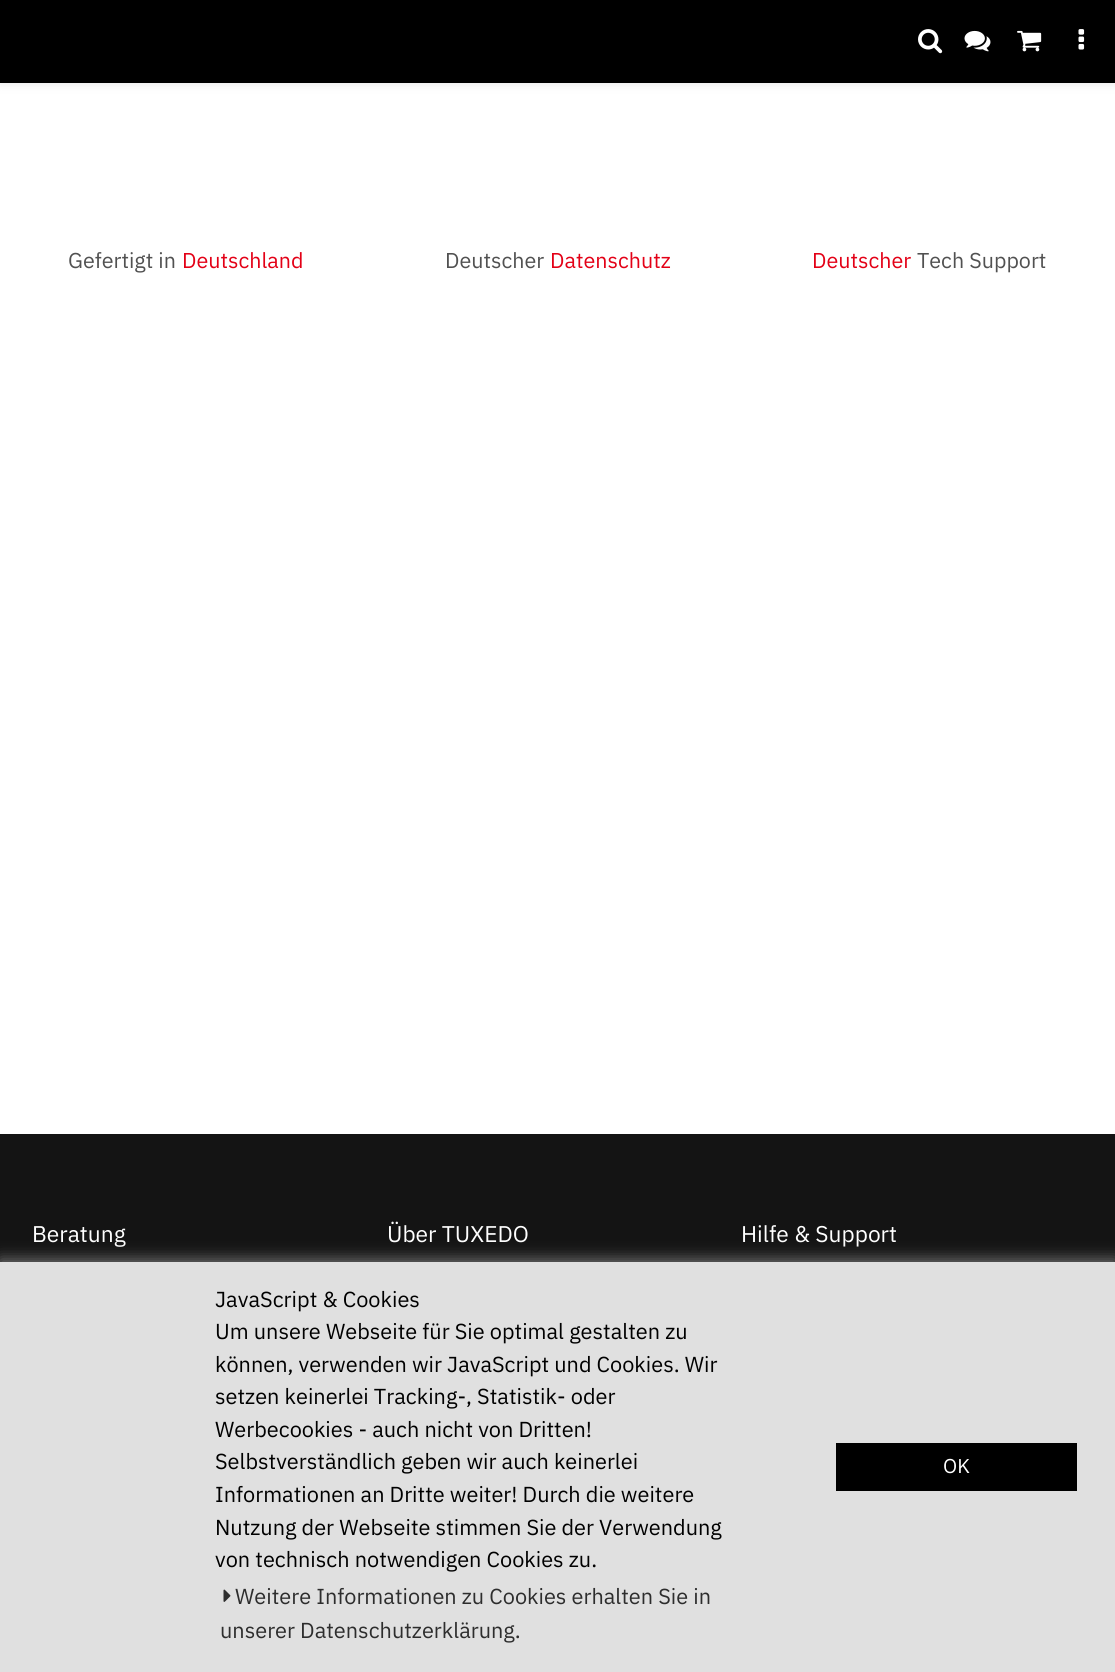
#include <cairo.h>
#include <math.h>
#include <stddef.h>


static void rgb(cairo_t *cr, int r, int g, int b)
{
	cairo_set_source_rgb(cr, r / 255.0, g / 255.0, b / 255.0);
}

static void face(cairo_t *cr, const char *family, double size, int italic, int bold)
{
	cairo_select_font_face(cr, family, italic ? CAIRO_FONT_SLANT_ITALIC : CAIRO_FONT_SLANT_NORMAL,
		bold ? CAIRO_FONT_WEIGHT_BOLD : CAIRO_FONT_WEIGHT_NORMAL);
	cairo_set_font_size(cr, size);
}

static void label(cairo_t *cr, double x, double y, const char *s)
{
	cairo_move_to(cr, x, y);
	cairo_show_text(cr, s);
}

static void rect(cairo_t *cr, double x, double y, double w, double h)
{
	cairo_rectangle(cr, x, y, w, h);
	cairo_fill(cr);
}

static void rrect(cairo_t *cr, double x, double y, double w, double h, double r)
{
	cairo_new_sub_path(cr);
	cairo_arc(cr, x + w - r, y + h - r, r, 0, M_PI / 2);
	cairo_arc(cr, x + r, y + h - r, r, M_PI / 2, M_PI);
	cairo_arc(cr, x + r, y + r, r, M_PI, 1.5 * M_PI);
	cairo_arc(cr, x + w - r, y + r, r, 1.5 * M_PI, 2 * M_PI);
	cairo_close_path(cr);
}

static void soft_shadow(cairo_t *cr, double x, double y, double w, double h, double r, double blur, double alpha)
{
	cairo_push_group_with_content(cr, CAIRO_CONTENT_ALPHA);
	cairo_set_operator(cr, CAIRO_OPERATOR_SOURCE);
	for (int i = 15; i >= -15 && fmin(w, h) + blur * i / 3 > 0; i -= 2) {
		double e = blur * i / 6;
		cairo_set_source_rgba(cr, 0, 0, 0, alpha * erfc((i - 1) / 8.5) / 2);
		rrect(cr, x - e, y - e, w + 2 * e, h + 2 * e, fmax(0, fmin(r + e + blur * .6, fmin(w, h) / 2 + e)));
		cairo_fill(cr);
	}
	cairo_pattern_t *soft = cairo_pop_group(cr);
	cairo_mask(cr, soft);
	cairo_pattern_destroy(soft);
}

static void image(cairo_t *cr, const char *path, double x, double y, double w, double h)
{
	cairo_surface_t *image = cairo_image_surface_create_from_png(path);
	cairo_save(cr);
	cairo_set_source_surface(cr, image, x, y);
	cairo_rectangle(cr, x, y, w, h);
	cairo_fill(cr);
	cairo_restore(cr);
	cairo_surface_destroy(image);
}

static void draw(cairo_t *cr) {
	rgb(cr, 255, 255, 255);
	cairo_paint(cr);
	rgb(cr, 112, 112, 112);
	soft_shadow(cr, 0, 0, 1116, 83, 0, 5, 0.2);
	rgb(cr, 0, 0, 0);
	rect(cr, 0, 0, 1115, 83);
	image(cr, "image0.png", 918, 29, 25, 25);
	image(cr, "image1.png", 964, 30, 27, 22);
	image(cr, "image2.png", 1017, 30, 25, 22);
	image(cr, "image3.png", 1078, 29, 7, 21);
	face(cr, "IBM Plex Sans", 21.5, 0, 0);
	rgb(cr, 81, 81, 81);
	label(cr, 68, 268, "Gefertigt in");
	rgb(cr, 227, 0, 22);
	label(cr, 182, 268, "Deutschland");
	rgb(cr, 81, 81, 81);
	label(cr, 445, 268, "Deutscher");
	rgb(cr, 227, 0, 22);
	label(cr, 550, 268, "Datenschutz");
	label(cr, 812, 268, "Deutscher");
	rgb(cr, 81, 81, 81);
	label(cr, 917, 268, "Tech Support");
	rgb(cr, 20, 20, 20);
	rect(cr, 0, 1134, 1115, 128);
	face(cr, "IBM Plex Sans", 22.75, 0, 0);
	rgb(cr, 255, 255, 255);
	label(cr, 32, 1242, "Beratung");
	label(cr, 387, 1242, "Über TUXEDO");
	label(cr, 741, 1242, "Hilfe & Support");
	rgb(cr, 112, 112, 112);
	soft_shadow(cr, 0, 1259, 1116, 411, 0, 7.5, 1);
	rgb(cr, 224, 224, 224);
	rect(cr, 0, 1262, 1115, 410);
	face(cr, "IBM Plex Sans", 21.75, 0, 0);
	rgb(cr, 0, 0, 0);
	label(cr, 215, 1307, "JavaScript & Cookies");
	face(cr, "IBM Plex Sans", 21.7, 0, 0);
	label(cr, 215, 1339, "Um unsere Webseite für Sie optimal gestalten zu");
	label(cr, 215, 1372, "können, verwenden wir JavaScript und Cookies. Wir");
	label(cr, 215, 1404, "setzen keinerlei Tracking-, Statistik- oder");
	label(cr, 215, 1437, "Werbecookies - auch nicht von Dritten!");
	label(cr, 215, 1469, "Selbstverständlich geben wir auch keinerlei");
	label(cr, 215, 1502, "Informationen an Dritte weiter! Durch die weitere");
	label(cr, 215, 1535, "Nutzung der Webseite stimmen Sie der Verwendung");
	label(cr, 215, 1567, "von technisch notwendigen Cookies zu.");
	image(cr, "image4.png", 223, 1589, 8, 13);
	rgb(cr, 45, 45, 45);
	label(cr, 235, 1604, "Weitere Informationen zu Cookies erhalten Sie in");
	label(cr, 220, 1638, "unserer Datenschutzerklärung.");
	rgb(cr, 0, 0, 0);
	rect(cr, 836, 1443, 241, 48);
	face(cr, "IBM Plex Sans", 20, 0, 0);
	rgb(cr, 255, 255, 255);
	label(cr, 943, 1473, "OK");
}

int main(void) {
	cairo_surface_t *surface = cairo_image_surface_create(CAIRO_FORMAT_RGB24, 1115, 1672);
	cairo_t *cr = cairo_create(surface);
	cairo_font_options_t *options = cairo_font_options_create();
	cairo_font_options_set_hint_metrics(options, CAIRO_HINT_METRICS_OFF);
	cairo_font_options_set_hint_style(options, CAIRO_HINT_STYLE_NONE);
	cairo_set_font_options(cr, options);
	cairo_set_miter_limit(cr, 4);
	draw(cr);
	cairo_surface_write_to_png(surface, "render.png");
	cairo_font_options_destroy(options);
	cairo_destroy(cr);
	cairo_surface_destroy(surface);
	return 0;
}
